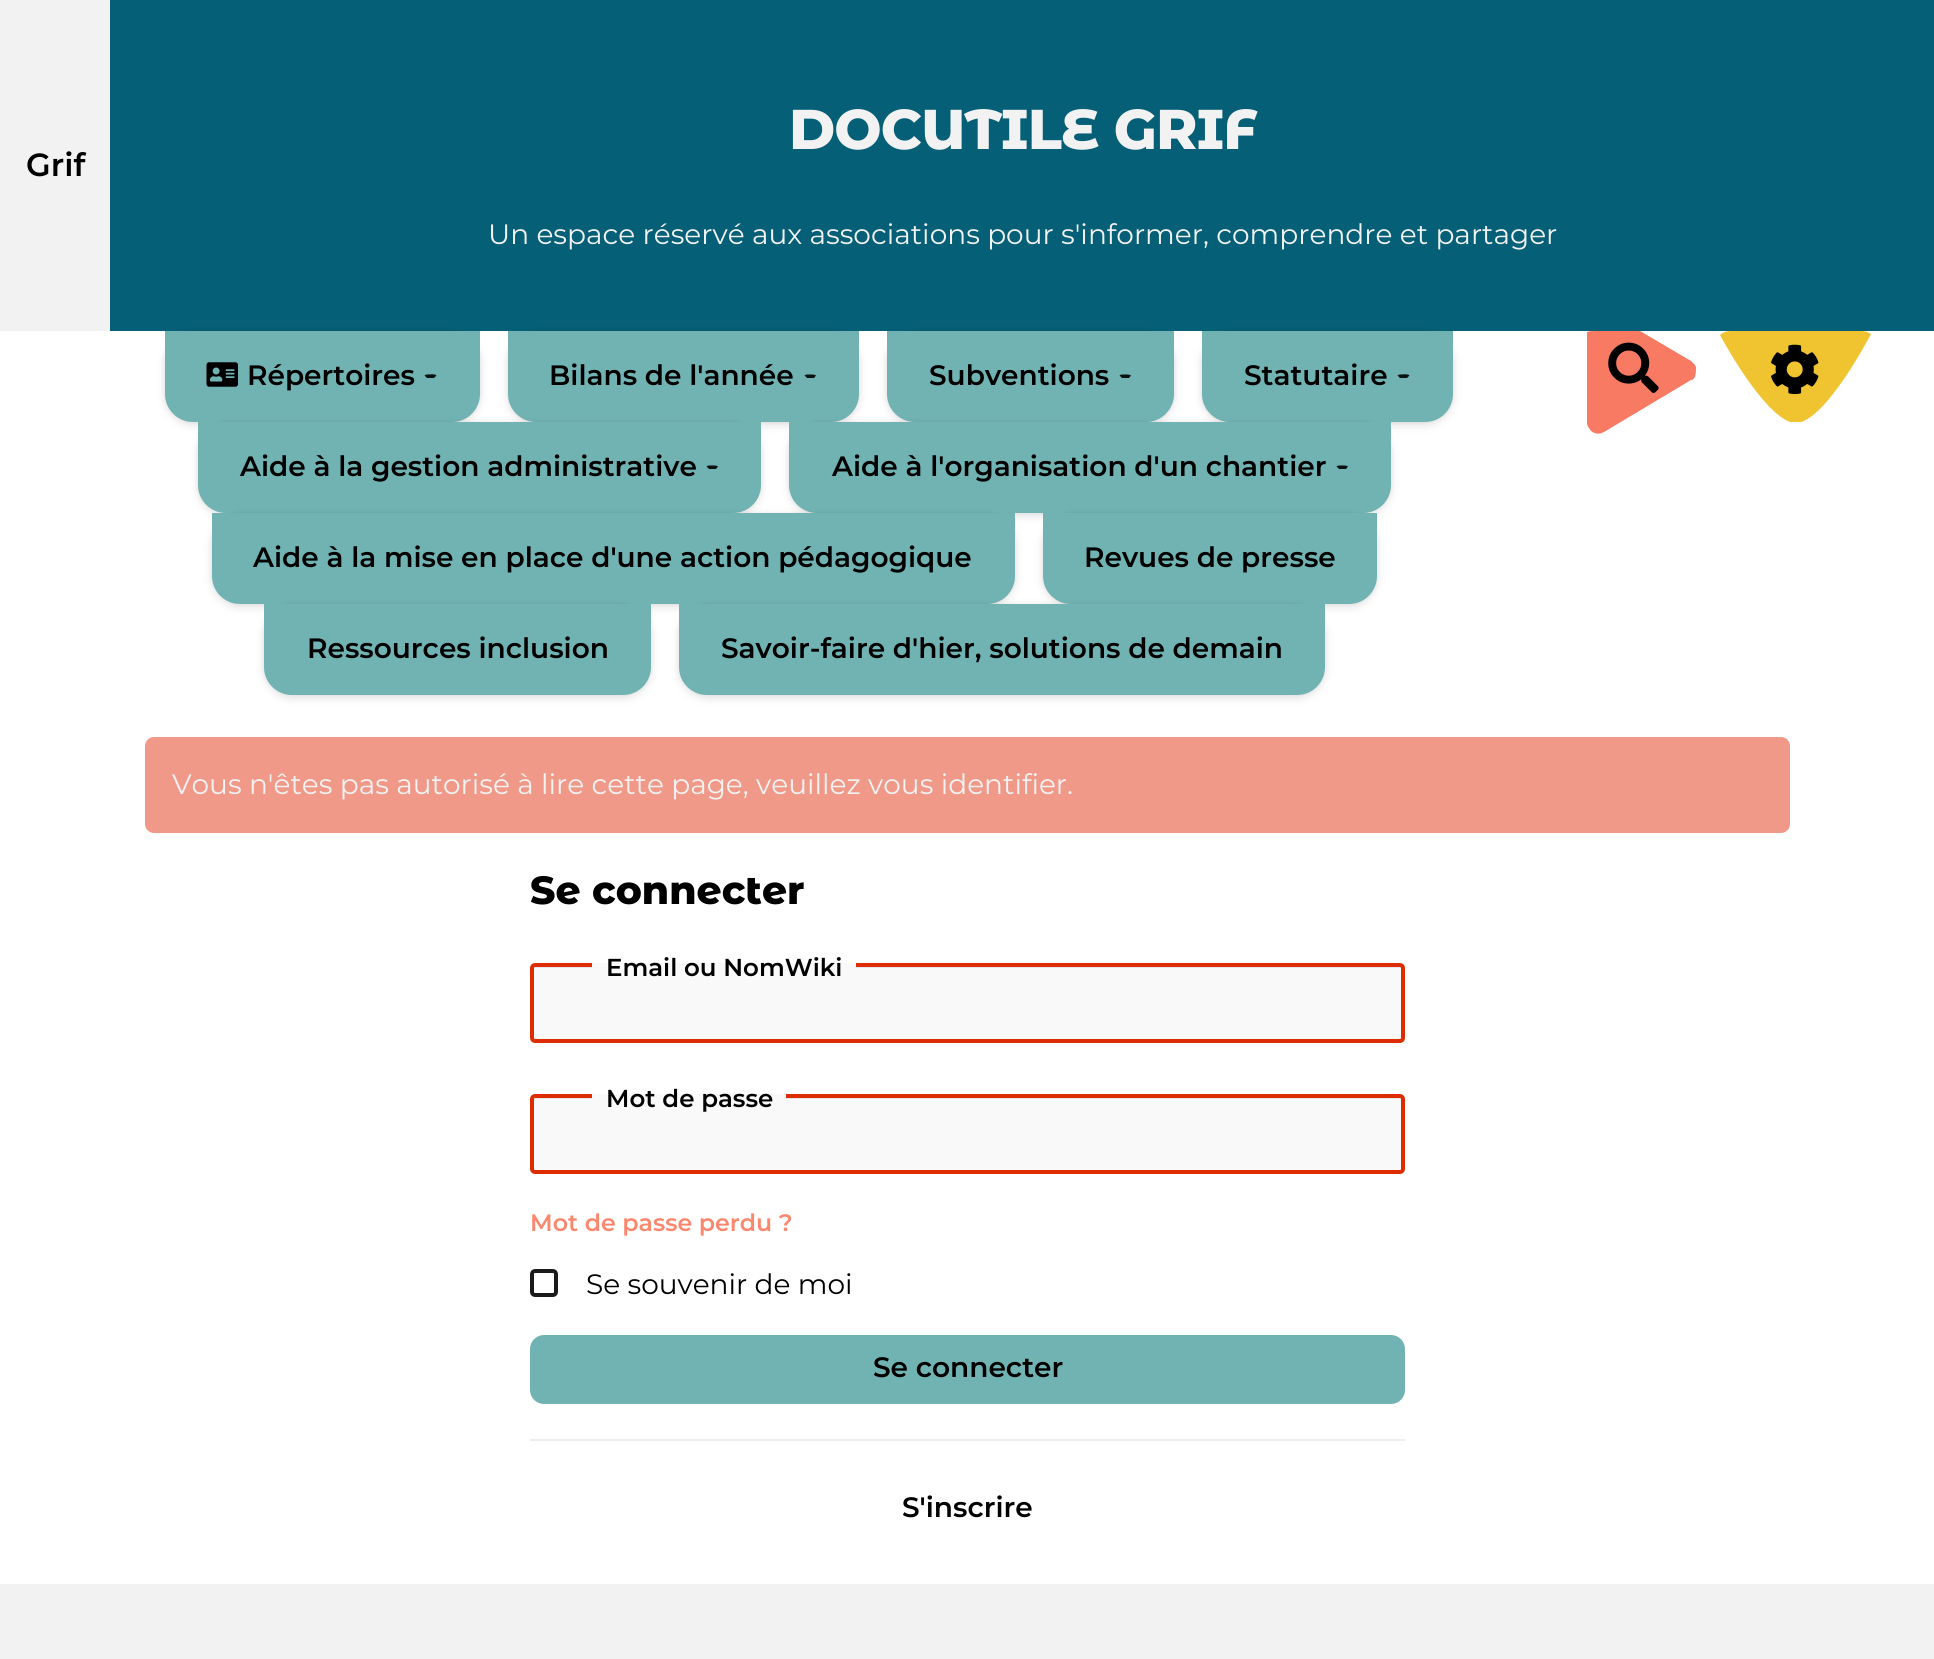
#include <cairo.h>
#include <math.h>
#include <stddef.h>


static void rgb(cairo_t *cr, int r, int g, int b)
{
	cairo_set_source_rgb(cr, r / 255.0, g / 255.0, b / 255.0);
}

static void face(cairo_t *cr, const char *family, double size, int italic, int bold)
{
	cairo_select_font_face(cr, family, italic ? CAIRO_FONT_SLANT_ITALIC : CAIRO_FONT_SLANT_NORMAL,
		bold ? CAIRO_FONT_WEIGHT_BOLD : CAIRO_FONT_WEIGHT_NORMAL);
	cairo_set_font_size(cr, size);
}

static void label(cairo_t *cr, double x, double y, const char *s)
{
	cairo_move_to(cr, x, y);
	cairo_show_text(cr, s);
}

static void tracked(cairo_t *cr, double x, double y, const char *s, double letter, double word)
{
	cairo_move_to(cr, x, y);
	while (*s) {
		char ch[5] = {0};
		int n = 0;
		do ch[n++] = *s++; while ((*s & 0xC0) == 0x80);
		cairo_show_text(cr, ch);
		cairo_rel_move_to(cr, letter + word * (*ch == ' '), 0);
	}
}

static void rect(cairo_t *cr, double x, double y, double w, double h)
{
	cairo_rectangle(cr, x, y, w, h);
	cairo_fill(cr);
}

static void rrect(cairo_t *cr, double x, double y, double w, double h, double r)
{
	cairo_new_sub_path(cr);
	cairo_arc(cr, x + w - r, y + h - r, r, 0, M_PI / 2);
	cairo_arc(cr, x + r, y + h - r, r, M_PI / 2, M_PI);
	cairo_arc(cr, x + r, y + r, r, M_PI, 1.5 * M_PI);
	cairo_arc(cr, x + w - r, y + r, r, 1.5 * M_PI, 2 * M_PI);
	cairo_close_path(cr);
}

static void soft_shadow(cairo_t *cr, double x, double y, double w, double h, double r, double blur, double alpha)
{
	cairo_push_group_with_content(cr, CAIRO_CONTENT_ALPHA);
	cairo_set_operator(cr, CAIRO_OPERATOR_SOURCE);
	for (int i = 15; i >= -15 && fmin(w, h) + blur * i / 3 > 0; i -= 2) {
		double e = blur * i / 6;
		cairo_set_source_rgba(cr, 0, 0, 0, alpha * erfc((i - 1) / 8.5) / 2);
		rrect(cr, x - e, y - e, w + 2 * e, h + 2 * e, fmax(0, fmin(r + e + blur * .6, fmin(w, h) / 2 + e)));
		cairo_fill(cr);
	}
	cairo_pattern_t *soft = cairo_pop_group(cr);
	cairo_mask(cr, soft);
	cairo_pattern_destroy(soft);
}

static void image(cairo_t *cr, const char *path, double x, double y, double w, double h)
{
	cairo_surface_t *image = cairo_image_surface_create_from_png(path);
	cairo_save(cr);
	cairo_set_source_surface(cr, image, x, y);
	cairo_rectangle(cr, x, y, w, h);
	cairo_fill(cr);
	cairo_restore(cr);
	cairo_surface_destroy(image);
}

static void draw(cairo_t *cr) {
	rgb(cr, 255, 255, 255);
	cairo_paint(cr);
	rgb(cr, 242, 242, 242);
	rect(cr, 0, 0, 110, 331);
	face(cr, "Montserrat SemiBold", 32, 0, 0);
	rgb(cr, 0, 0, 0);
	label(cr, 26, 176, "Grif");
	rgb(cr, 5, 95, 118);
	rect(cr, 110, 0, 1824, 331);
	face(cr, "Montserrat Alternates ExtraBold", 56, 0, 0);
	rgb(cr, 242, 242, 242);
	tracked(cr, 789, 149, "DOCUTILE GRIF", -0.9, 0);
	face(cr, "Montserrat", 28, 0, 0);
	label(cr, 488, 244, "Un espace réservé aux associations pour s'informer, comprendre et partager");
	rgb(cr, 0, 0, 0);
	soft_shadow(cr, 165, 334, 315, 91, 28, 5, 0.12);
	soft_shadow(cr, 165, 331, 315, 91, 28, 2, 0.06);
	rgb(cr, 113, 179, 179);
	cairo_new_path(cr);
	cairo_move_to(cr, 165, 331);
	cairo_line_to(cr, 480, 331);
	cairo_line_to(cr, 480, 394);
	cairo_curve_to(cr, 480, 409.5, 467.5, 422, 452, 422);
	cairo_line_to(cr, 193, 422);
	cairo_curve_to(cr, 177.5, 422, 165, 409.5, 165, 394);
	cairo_close_path(cr);
	cairo_fill(cr);
	image(cr, "image0.png", 206, 362, 32, 25);
	face(cr, "Montserrat SemiBold", 28, 0, 0);
	rgb(cr, 0, 0, 0);
	label(cr, 247, 385, "Répertoires");
	rgb(cr, 11, 18, 18);
	cairo_new_path(cr);
	cairo_move_to(cr, 427, 374.5);
	cairo_curve_to(cr, 429, 374.5, 435, 373.5, 436.5, 375.5);
	cairo_line_to(cr, 434, 378);
	cairo_line_to(cr, 427, 378);
	cairo_line_to(cr, 424.5, 375.5);
	cairo_curve_to(cr, 425, 375, 426, 374.5, 427, 374.5);
	cairo_close_path(cr);
	cairo_fill(cr);
	rgb(cr, 0, 0, 0);
	soft_shadow(cr, 508, 334, 351, 91, 28, 5, 0.12);
	soft_shadow(cr, 508, 331, 351, 91, 28, 2, 0.06);
	rgb(cr, 113, 179, 179);
	cairo_new_path(cr);
	cairo_move_to(cr, 508, 331);
	cairo_line_to(cr, 859, 331);
	cairo_line_to(cr, 859, 394);
	cairo_curve_to(cr, 859, 409.5, 846.5, 422, 831, 422);
	cairo_line_to(cr, 536, 422);
	cairo_curve_to(cr, 520.5, 422, 508, 409.5, 508, 394);
	cairo_close_path(cr);
	cairo_fill(cr);
	rgb(cr, 0, 0, 0);
	label(cr, 549, 385, "Bilans de l'année");
	rgb(cr, 11, 18, 18);
	cairo_new_path(cr);
	cairo_move_to(cr, 807, 374.5);
	cairo_curve_to(cr, 809, 374.5, 814.5, 374, 816, 375.5);
	cairo_line_to(cr, 814, 378);
	cairo_line_to(cr, 807, 378);
	cairo_line_to(cr, 804.5, 375.5);
	cairo_curve_to(cr, 805, 375, 806, 374.5, 807, 374.5);
	cairo_close_path(cr);
	cairo_fill(cr);
	rgb(cr, 0, 0, 0);
	soft_shadow(cr, 887, 334, 287, 91, 28, 5, 0.12);
	soft_shadow(cr, 887, 331, 287, 91, 28, 2, 0.06);
	rgb(cr, 113, 179, 179);
	cairo_new_path(cr);
	cairo_move_to(cr, 887, 331);
	cairo_line_to(cr, 1174, 331);
	cairo_line_to(cr, 1174, 394);
	cairo_curve_to(cr, 1174, 409.5, 1161.5, 422, 1146, 422);
	cairo_line_to(cr, 915, 422);
	cairo_curve_to(cr, 899.5, 422, 887, 409.5, 887, 394);
	cairo_close_path(cr);
	cairo_fill(cr);
	rgb(cr, 0, 0, 0);
	label(cr, 929, 385, "Subventions");
	rgb(cr, 11, 18, 18);
	cairo_new_path(cr);
	cairo_move_to(cr, 1122, 374.5);
	cairo_curve_to(cr, 1124, 374.5, 1129.5, 374, 1131, 375.5);
	cairo_line_to(cr, 1129, 378);
	cairo_line_to(cr, 1122, 378);
	cairo_line_to(cr, 1119.5, 375.5);
	cairo_curve_to(cr, 1120, 375, 1121, 374.5, 1122, 374.5);
	cairo_close_path(cr);
	cairo_fill(cr);
	rgb(cr, 0, 0, 0);
	soft_shadow(cr, 1202, 334, 251, 91, 28, 5, 0.12);
	soft_shadow(cr, 1202, 331, 251, 91, 28, 2, 0.06);
	rgb(cr, 113, 179, 179);
	cairo_new_path(cr);
	cairo_move_to(cr, 1202, 331);
	cairo_line_to(cr, 1453, 331);
	cairo_line_to(cr, 1453, 394);
	cairo_curve_to(cr, 1453, 409.5, 1440.5, 422, 1425, 422);
	cairo_line_to(cr, 1230, 422);
	cairo_curve_to(cr, 1214.5, 422, 1202, 409.5, 1202, 394);
	cairo_close_path(cr);
	cairo_fill(cr);
	rgb(cr, 0, 0, 0);
	label(cr, 1244, 385, "Statutaire");
	rgb(cr, 11, 18, 18);
	cairo_new_path(cr);
	cairo_move_to(cr, 1400, 374.5);
	cairo_curve_to(cr, 1402, 374.5, 1408, 373.5, 1409.5, 375.5);
	cairo_line_to(cr, 1407, 378);
	cairo_line_to(cr, 1400, 378);
	cairo_line_to(cr, 1397.5, 375.5);
	cairo_curve_to(cr, 1398, 375, 1399, 374.5, 1400, 374.5);
	cairo_close_path(cr);
	cairo_fill(cr);
	rgb(cr, 0, 0, 0);
	soft_shadow(cr, 198, 425, 563, 91, 28, 5, 0.12);
	soft_shadow(cr, 198, 422, 563, 91, 28, 2, 0.06);
	rgb(cr, 113, 179, 179);
	cairo_new_path(cr);
	cairo_move_to(cr, 198, 422);
	cairo_line_to(cr, 761, 422);
	cairo_line_to(cr, 761, 485);
	cairo_curve_to(cr, 761, 500.5, 748.5, 513, 733, 513);
	cairo_line_to(cr, 226, 513);
	cairo_curve_to(cr, 210.5, 513, 198, 500.5, 198, 485);
	cairo_close_path(cr);
	cairo_fill(cr);
	rgb(cr, 0, 0, 0);
	label(cr, 240, 476, "Aide à la gestion administrative");
	rgb(cr, 11, 18, 18);
	cairo_new_path(cr);
	cairo_move_to(cr, 709, 465.5);
	cairo_curve_to(cr, 711, 465.5, 716.5, 465, 718, 466.5);
	cairo_line_to(cr, 716, 469);
	cairo_line_to(cr, 709, 469);
	cairo_line_to(cr, 706.5, 466.5);
	cairo_curve_to(cr, 707, 466, 708, 465.5, 709, 465.5);
	cairo_close_path(cr);
	cairo_fill(cr);
	rgb(cr, 0, 0, 0);
	soft_shadow(cr, 789, 425, 602, 91, 28, 5, 0.12);
	soft_shadow(cr, 789, 422, 602, 91, 28, 2, 0.06);
	rgb(cr, 113, 179, 179);
	cairo_new_path(cr);
	cairo_move_to(cr, 789, 422);
	cairo_line_to(cr, 1391, 422);
	cairo_line_to(cr, 1391, 485);
	cairo_curve_to(cr, 1391, 500.5, 1378.5, 513, 1363, 513);
	cairo_line_to(cr, 817, 513);
	cairo_curve_to(cr, 801.5, 513, 789, 500.5, 789, 485);
	cairo_close_path(cr);
	cairo_fill(cr);
	rgb(cr, 0, 0, 0);
	label(cr, 832, 476, "Aide à l'organisation d'un chantier");
	rgb(cr, 11, 18, 18);
	cairo_new_path(cr);
	cairo_move_to(cr, 1339, 465.5);
	cairo_curve_to(cr, 1341, 465.5, 1346.5, 465, 1348, 466.5);
	cairo_line_to(cr, 1346, 469);
	cairo_line_to(cr, 1339, 469);
	cairo_line_to(cr, 1336.5, 466.5);
	cairo_curve_to(cr, 1337, 466, 1338, 465.5, 1339, 465.5);
	cairo_close_path(cr);
	cairo_fill(cr);
	rgb(cr, 0, 0, 0);
	soft_shadow(cr, 212, 516, 803, 91, 28, 5, 0.12);
	soft_shadow(cr, 212, 513, 803, 91, 28, 2, 0.06);
	rgb(cr, 113, 179, 179);
	cairo_new_path(cr);
	cairo_move_to(cr, 212, 513);
	cairo_line_to(cr, 1015, 513);
	cairo_line_to(cr, 1015, 576);
	cairo_curve_to(cr, 1015, 591.5, 1002.5, 604, 987, 604);
	cairo_line_to(cr, 240, 604);
	cairo_curve_to(cr, 224.5, 604, 212, 591.5, 212, 576);
	cairo_close_path(cr);
	cairo_fill(cr);
	rgb(cr, 0, 0, 0);
	label(cr, 253, 567, "Aide à la mise en place d'une action pédagogique");
	rgb(cr, 0, 0, 0);
	soft_shadow(cr, 1043, 516, 334, 91, 28, 5, 0.12);
	soft_shadow(cr, 1043, 513, 334, 91, 28, 2, 0.06);
	rgb(cr, 113, 179, 179);
	cairo_new_path(cr);
	cairo_move_to(cr, 1043, 513);
	cairo_line_to(cr, 1377, 513);
	cairo_line_to(cr, 1377, 576);
	cairo_curve_to(cr, 1377, 591.5, 1364.5, 604, 1349, 604);
	cairo_line_to(cr, 1071, 604);
	cairo_curve_to(cr, 1055.5, 604, 1043, 591.5, 1043, 576);
	cairo_close_path(cr);
	cairo_fill(cr);
	rgb(cr, 0, 0, 0);
	label(cr, 1084, 567, "Revues de presse");
	rgb(cr, 0, 0, 0);
	soft_shadow(cr, 264, 607, 387, 91, 28, 5, 0.12);
	soft_shadow(cr, 264, 604, 387, 91, 28, 2, 0.06);
	rgb(cr, 113, 179, 179);
	cairo_new_path(cr);
	cairo_move_to(cr, 264, 604);
	cairo_line_to(cr, 651, 604);
	cairo_line_to(cr, 651, 667);
	cairo_curve_to(cr, 651, 682.5, 638.5, 695, 623, 695);
	cairo_line_to(cr, 292, 695);
	cairo_curve_to(cr, 276.5, 695, 264, 682.5, 264, 667);
	cairo_close_path(cr);
	cairo_fill(cr);
	rgb(cr, 0, 0, 0);
	label(cr, 307, 658, "Ressources inclusion");
	rgb(cr, 0, 0, 0);
	soft_shadow(cr, 679, 607, 646, 91, 28, 5, 0.12);
	soft_shadow(cr, 679, 604, 646, 91, 28, 2, 0.06);
	rgb(cr, 113, 179, 179);
	cairo_new_path(cr);
	cairo_move_to(cr, 679, 604);
	cairo_line_to(cr, 1325, 604);
	cairo_line_to(cr, 1325, 667);
	cairo_curve_to(cr, 1325, 682.5, 1312.5, 695, 1297, 695);
	cairo_line_to(cr, 707, 695);
	cairo_curve_to(cr, 691.5, 695, 679, 682.5, 679, 667);
	cairo_close_path(cr);
	cairo_fill(cr);
	rgb(cr, 0, 0, 0);
	label(cr, 721, 658, "Savoir-faire d'hier, solutions de demain");
	rgb(cr, 248, 122, 99);
	cairo_new_path(cr);
	cairo_move_to(cr, 1691, 361);
	cairo_line_to(cr, 1640, 331);
	cairo_line_to(cr, 1595, 331);
	cairo_curve_to(cr, 1592, 331, 1590, 331, 1587, 332);
	cairo_line_to(cr, 1587, 423);
	cairo_curve_to(cr, 1587, 425, 1588, 427, 1589, 428);
	cairo_curve_to(cr, 1592, 434, 1599, 435, 1604, 432);
	cairo_line_to(cr, 1691, 380);
	cairo_curve_to(cr, 1696, 380, 1696, 371, 1696, 368);
	cairo_curve_to(cr, 1696, 365, 1693, 363, 1691, 361);
	cairo_close_path(cr);
	cairo_fill(cr);
	image(cr, "image1.png", 1608, 342, 51, 51);
	cairo_save(cr);
	cairo_rectangle(cr, 1719, 331, 154, 91);
	cairo_clip(cr);
	rgb(cr, 240, 196, 49);
	cairo_new_path(cr);
	cairo_move_to(cr, 1731, 331);
	cairo_curve_to(cr, 1727, 331, 1723, 332, 1720, 335);
	cairo_curve_to(cr, 1729, 352, 1770, 423, 1796, 423);
	cairo_curve_to(cr, 1823, 422, 1863, 349, 1871, 334);
	cairo_curve_to(cr, 1868, 332, 1865, 331, 1861, 331);
	cairo_close_path(cr);
	cairo_fill(cr);
	cairo_restore(cr);
	image(cr, "image2.png", 1771, 344, 48, 51);
	rgb(cr, 240, 153, 137);
	rrect(cr, 145, 737, 1645, 96, 9);
	cairo_fill(cr);
	face(cr, "Montserrat", 28, 0, 0);
	rgb(cr, 242, 242, 242);
	label(cr, 172, 794, "Vous n'êtes pas autorisé à lire cette page, veuillez vous identifier.");
	face(cr, "Montserrat Alternates ExtraBold", 39.25, 0, 0);
	rgb(cr, 0, 0, 0);
	label(cr, 530, 904, "Se connecter");
	rgb(cr, 249, 249, 249);
	rrect(cr, 530, 963, 875, 80, 5);
	cairo_fill(cr);
	rgb(cr, 230, 230, 230);
	cairo_new_path(cr);
	cairo_move_to(cr, 536, 968);
	cairo_line_to(cr, 1400, 968);
	cairo_curve_to(cr, 1401, 968, 1402, 969, 1402, 970);
	cairo_line_to(cr, 1402, 967);
	cairo_line_to(cr, 1400, 966);
	cairo_line_to(cr, 536, 966);
	cairo_line_to(cr, 535, 967);
	cairo_curve_to(cr, 534, 967, 534, 969, 534, 970);
	cairo_curve_to(cr, 534, 969, 535, 968, 536, 968);
	cairo_close_path(cr);
	cairo_fill(cr);
	rrect(cr, 532, 965, 871, 76, 3);
	rgb(cr, 221, 44, 0);
	cairo_set_line_width(cr, 4);
	cairo_stroke(cr);
	rgb(cr, 249, 249, 249);
	rect(cr, 592, 963, 264, 5);
	face(cr, "Montserrat SemiBold", 24.5, 0, 0);
	rgb(cr, 0, 0, 0);
	label(cr, 606, 976, "Email ou NomWiki");
	rgb(cr, 249, 249, 249);
	rrect(cr, 530, 1094, 875, 80, 5);
	cairo_fill(cr);
	rgb(cr, 230, 230, 230);
	cairo_new_path(cr);
	cairo_move_to(cr, 536, 1099);
	cairo_line_to(cr, 1400, 1099);
	cairo_curve_to(cr, 1401, 1099, 1402, 1100, 1402, 1101);
	cairo_line_to(cr, 1402, 1098);
	cairo_line_to(cr, 1400, 1097);
	cairo_line_to(cr, 536, 1097);
	cairo_line_to(cr, 535, 1098);
	cairo_curve_to(cr, 534, 1098, 534, 1100, 534, 1101);
	cairo_curve_to(cr, 534, 1100, 535, 1099, 536, 1099);
	cairo_close_path(cr);
	cairo_fill(cr);
	rrect(cr, 532, 1096, 871, 76, 3);
	rgb(cr, 221, 44, 0);
	cairo_stroke(cr);
	rgb(cr, 249, 249, 249);
	rect(cr, 592, 1094, 194, 5);
	rgb(cr, 0, 0, 0);
	label(cr, 606, 1107, "Mot de passe");
	face(cr, "Montserrat SemiBold", 23.75, 0, 0);
	rgb(cr, 249, 136, 111);
	label(cr, 530, 1231, "Mot de passe perdu ?");
	rrect(cr, 532, 1271, 24, 24, 3);
	rgb(cr, 26, 26, 26);
	cairo_stroke(cr);
	face(cr, "Montserrat", 28, 0, 0);
	rgb(cr, 0, 0, 0);
	label(cr, 586, 1294, "Se souvenir de moi");
	rgb(cr, 113, 179, 179);
	rrect(cr, 530, 1335, 875, 69, 14);
	cairo_fill(cr);
	face(cr, "Montserrat SemiBold", 28, 0, 0);
	rgb(cr, 0, 0, 0);
	label(cr, 873, 1377, "Se connecter");
	rgb(cr, 238, 238, 238);
	rect(cr, 530, 1439, 875, 2);
	rgb(cr, 0, 0, 0);
	label(cr, 902, 1517, "S'inscrire");
	rgb(cr, 242, 242, 242);
	rect(cr, 0, 1584, 1934, 75);
}

int main(void) {
	cairo_surface_t *surface = cairo_image_surface_create(CAIRO_FORMAT_RGB24, 1934, 1659);
	cairo_t *cr = cairo_create(surface);
	cairo_font_options_t *options = cairo_font_options_create();
	cairo_font_options_set_hint_metrics(options, CAIRO_HINT_METRICS_OFF);
	cairo_font_options_set_hint_style(options, CAIRO_HINT_STYLE_NONE);
	cairo_set_font_options(cr, options);
	cairo_set_miter_limit(cr, 4);
	draw(cr);
	cairo_surface_write_to_png(surface, "render.png");
	cairo_font_options_destroy(options);
	cairo_destroy(cr);
	cairo_surface_destroy(surface);
	return 0;
}
